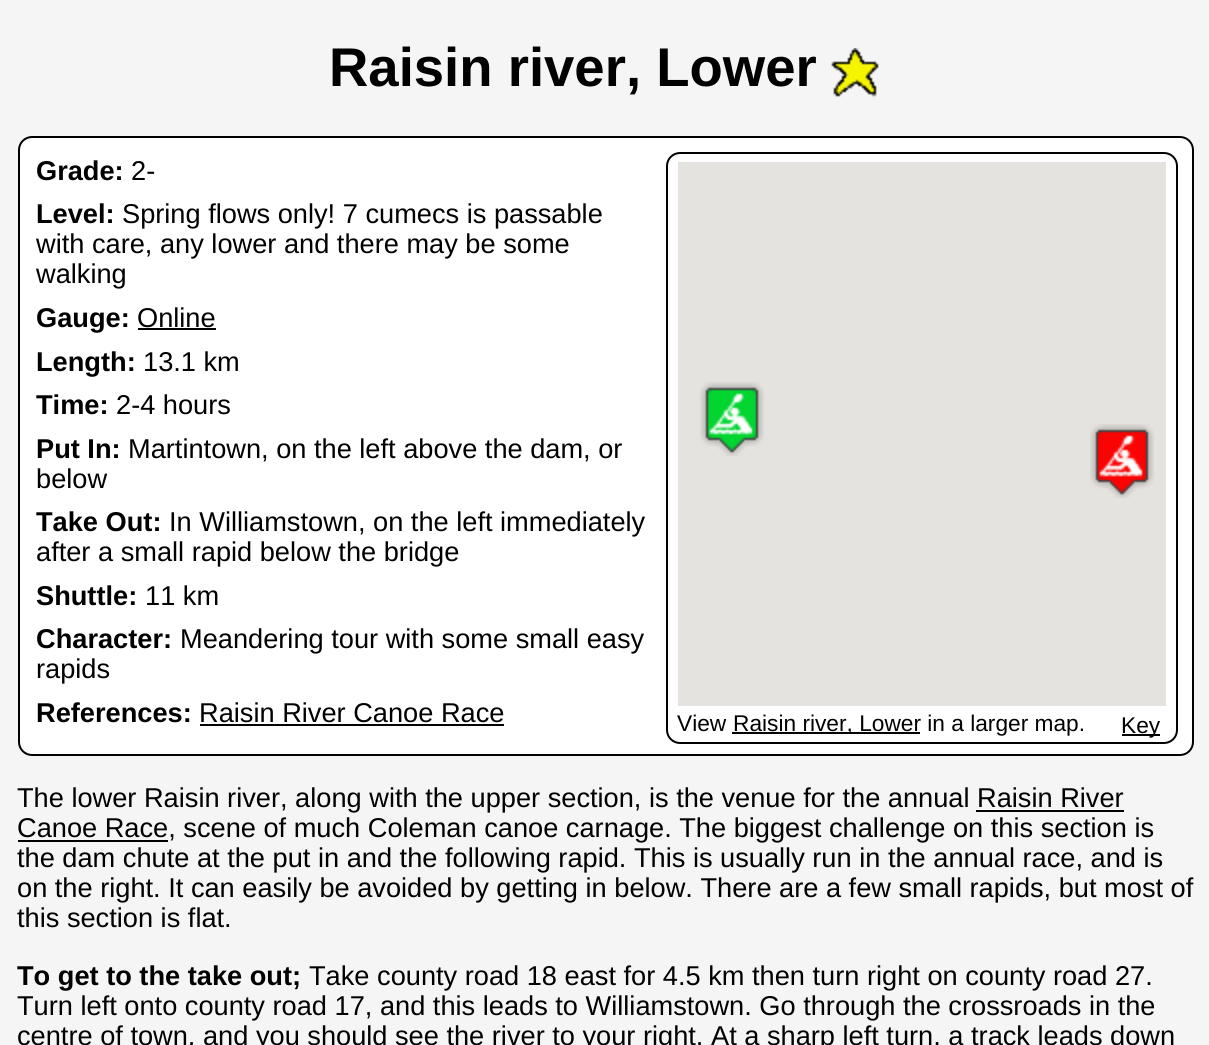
#include <cairo.h>
#include <math.h>
#include <stddef.h>


static void rgb(cairo_t *cr, int r, int g, int b)
{
	cairo_set_source_rgb(cr, r / 255.0, g / 255.0, b / 255.0);
}

static void face(cairo_t *cr, const char *family, double size, int italic, int bold)
{
	cairo_select_font_face(cr, family, italic ? CAIRO_FONT_SLANT_ITALIC : CAIRO_FONT_SLANT_NORMAL,
		bold ? CAIRO_FONT_WEIGHT_BOLD : CAIRO_FONT_WEIGHT_NORMAL);
	cairo_set_font_size(cr, size);
}

static void label(cairo_t *cr, double x, double y, const char *s)
{
	cairo_move_to(cr, x, y);
	cairo_show_text(cr, s);
}

static void rect(cairo_t *cr, double x, double y, double w, double h)
{
	cairo_rectangle(cr, x, y, w, h);
	cairo_fill(cr);
}

static void rrect(cairo_t *cr, double x, double y, double w, double h, double r)
{
	cairo_new_sub_path(cr);
	cairo_arc(cr, x + w - r, y + h - r, r, 0, M_PI / 2);
	cairo_arc(cr, x + r, y + h - r, r, M_PI / 2, M_PI);
	cairo_arc(cr, x + r, y + r, r, M_PI, 1.5 * M_PI);
	cairo_arc(cr, x + w - r, y + r, r, 1.5 * M_PI, 2 * M_PI);
	cairo_close_path(cr);
}

static void image(cairo_t *cr, const char *path, double x, double y, double w, double h)
{
	cairo_surface_t *image = cairo_image_surface_create_from_png(path);
	cairo_save(cr);
	cairo_set_source_surface(cr, image, x, y);
	cairo_rectangle(cr, x, y, w, h);
	cairo_fill(cr);
	cairo_restore(cr);
	cairo_surface_destroy(image);
}

static void draw(cairo_t *cr) {
	rgb(cr, 245, 245, 245);
	cairo_paint(cr);
	face(cr, "Liberation Sans", 54.5, 0, 1);
	rgb(cr, 0, 0, 0);
	label(cr, 329, 86, "Raisin river, Lower");
	image(cr, "image0.png", 831, 48, 48, 49);
	rgb(cr, 255, 255, 255);
	rrect(cr, 19, 137, 1174, 618, 13);
	cairo_fill_preserve(cr);
	rgb(cr, 0, 0, 0);
	cairo_stroke(cr);
	face(cr, "Liberation Sans", 27.2, 0, 1);
	label(cr, 36, 180, "Grade:");
	face(cr, "Liberation Sans", 27.2, 0, 0);
	label(cr, 131, 180, "2-");
	face(cr, "Liberation Sans", 27.2, 0, 1);
	label(cr, 36, 223, "Level:");
	face(cr, "Liberation Sans", 27.2, 0, 0);
	label(cr, 122, 223, "Spring flows only! 7 cumecs is passable");
	label(cr, 36, 253, "with care, any lower and there may be some");
	label(cr, 36, 283, "walking");
	face(cr, "Liberation Sans", 27.2, 0, 1);
	label(cr, 36, 327, "Gauge:");
	face(cr, "Liberation Sans", 27.2, 0, 0);
	label(cr, 137, 327, "Online");
	rect(cr, 138, 328, 78, 2);
	face(cr, "Liberation Sans", 27.2, 0, 1);
	label(cr, 36, 371, "Length:");
	face(cr, "Liberation Sans", 27.2, 0, 0);
	label(cr, 143, 371, "13.1 km");
	face(cr, "Liberation Sans", 27.2, 0, 1);
	label(cr, 36, 414, "Time:");
	face(cr, "Liberation Sans", 27.2, 0, 0);
	label(cr, 116, 414, "2-4 hours");
	face(cr, "Liberation Sans", 27.2, 0, 1);
	label(cr, 36, 458, "Put In:");
	face(cr, "Liberation Sans", 27.2, 0, 0);
	label(cr, 128, 458, "Martintown, on the left above the dam, or");
	label(cr, 36, 488, "below");
	face(cr, "Liberation Sans", 27.2, 0, 1);
	label(cr, 36, 531, "Take Out:");
	face(cr, "Liberation Sans", 27.2, 0, 0);
	label(cr, 169, 531, "In Williamstown, on the left immediately");
	label(cr, 36, 561, "after a small rapid below the bridge");
	face(cr, "Liberation Sans", 27.2, 0, 1);
	label(cr, 36, 605, "Shuttle:");
	face(cr, "Liberation Sans", 27.2, 0, 0);
	label(cr, 145, 605, "11 km");
	face(cr, "Liberation Sans", 27.2, 0, 1);
	label(cr, 36, 648, "Character:");
	face(cr, "Liberation Sans", 27.2, 0, 0);
	label(cr, 180, 648, "Meandering tour with some small easy");
	label(cr, 36, 678, "rapids");
	face(cr, "Liberation Sans", 27.2, 0, 1);
	label(cr, 36, 722, "References:");
	face(cr, "Liberation Sans", 27.2, 0, 0);
	label(cr, 199, 722, "Raisin River Canoe Race");
	rect(cr, 200, 724, 304, 2);
	rrect(cr, 667, 153, 510, 590, 13);
	cairo_stroke(cr);
	rgb(cr, 229, 227, 223);
	rect(cr, 678, 162, 488, 544);
	image(cr, "image1.png", 700, 382, 64, 74);
	image(cr, "image2.png", 1090, 424, 64, 74);
	face(cr, "Liberation Sans", 22.7, 0, 0);
	rgb(cr, 0, 0, 0);
	label(cr, 677, 731, "View");
	rect(cr, 732, 732, 188, 2);
	label(cr, 733, 731, "Raisin river, Lower in a larger map.");
	rect(cr, 1122, 734, 38, 2);
	label(cr, 1121, 733, "Key");
	face(cr, "Liberation Sans", 27.2, 0, 0);
	label(cr, 17, 807, "The lower Raisin river, along with the upper section, is the venue for the annual");
	label(cr, 977, 807, "Raisin River");
	rect(cr, 976, 810, 148, 2);
	rect(cr, 18, 840, 150, 2);
	label(cr, 17, 837, "Canoe Race, scene of much Coleman canoe carnage. The biggest challenge on this section is");
	label(cr, 17, 867, "the dam chute at the put in and the following rapid. This is usually run in the annual race, and is");
	label(cr, 17, 897, "on the right. It can easily be avoided by getting in below. There are a few small rapids, but most of");
	label(cr, 17, 927, "this section is flat.");
	face(cr, "Liberation Sans", 27.2, 0, 1);
	label(cr, 17, 985, "To get to the take out;");
	face(cr, "Liberation Sans", 27.2, 0, 0);
	label(cr, 309, 985, "Take county road 18 east for 4.5 km then turn right on county road 27.");
	label(cr, 17, 1015, "Turn left onto county road 17, and this leads to Williamstown. Go through the crossroads in the");
	label(cr, 17, 1045, "centre of town, and you should see the river to your right. At a sharp left turn, a track leads down");
}

int main(void) {
	cairo_surface_t *surface = cairo_image_surface_create(CAIRO_FORMAT_RGB24, 1209, 1045);
	cairo_t *cr = cairo_create(surface);
	cairo_font_options_t *options = cairo_font_options_create();
	cairo_font_options_set_hint_metrics(options, CAIRO_HINT_METRICS_OFF);
	cairo_font_options_set_hint_style(options, CAIRO_HINT_STYLE_NONE);
	cairo_set_font_options(cr, options);
	cairo_set_miter_limit(cr, 4);
	draw(cr);
	cairo_surface_write_to_png(surface, "render.png");
	cairo_font_options_destroy(options);
	cairo_destroy(cr);
	cairo_surface_destroy(surface);
	return 0;
}
